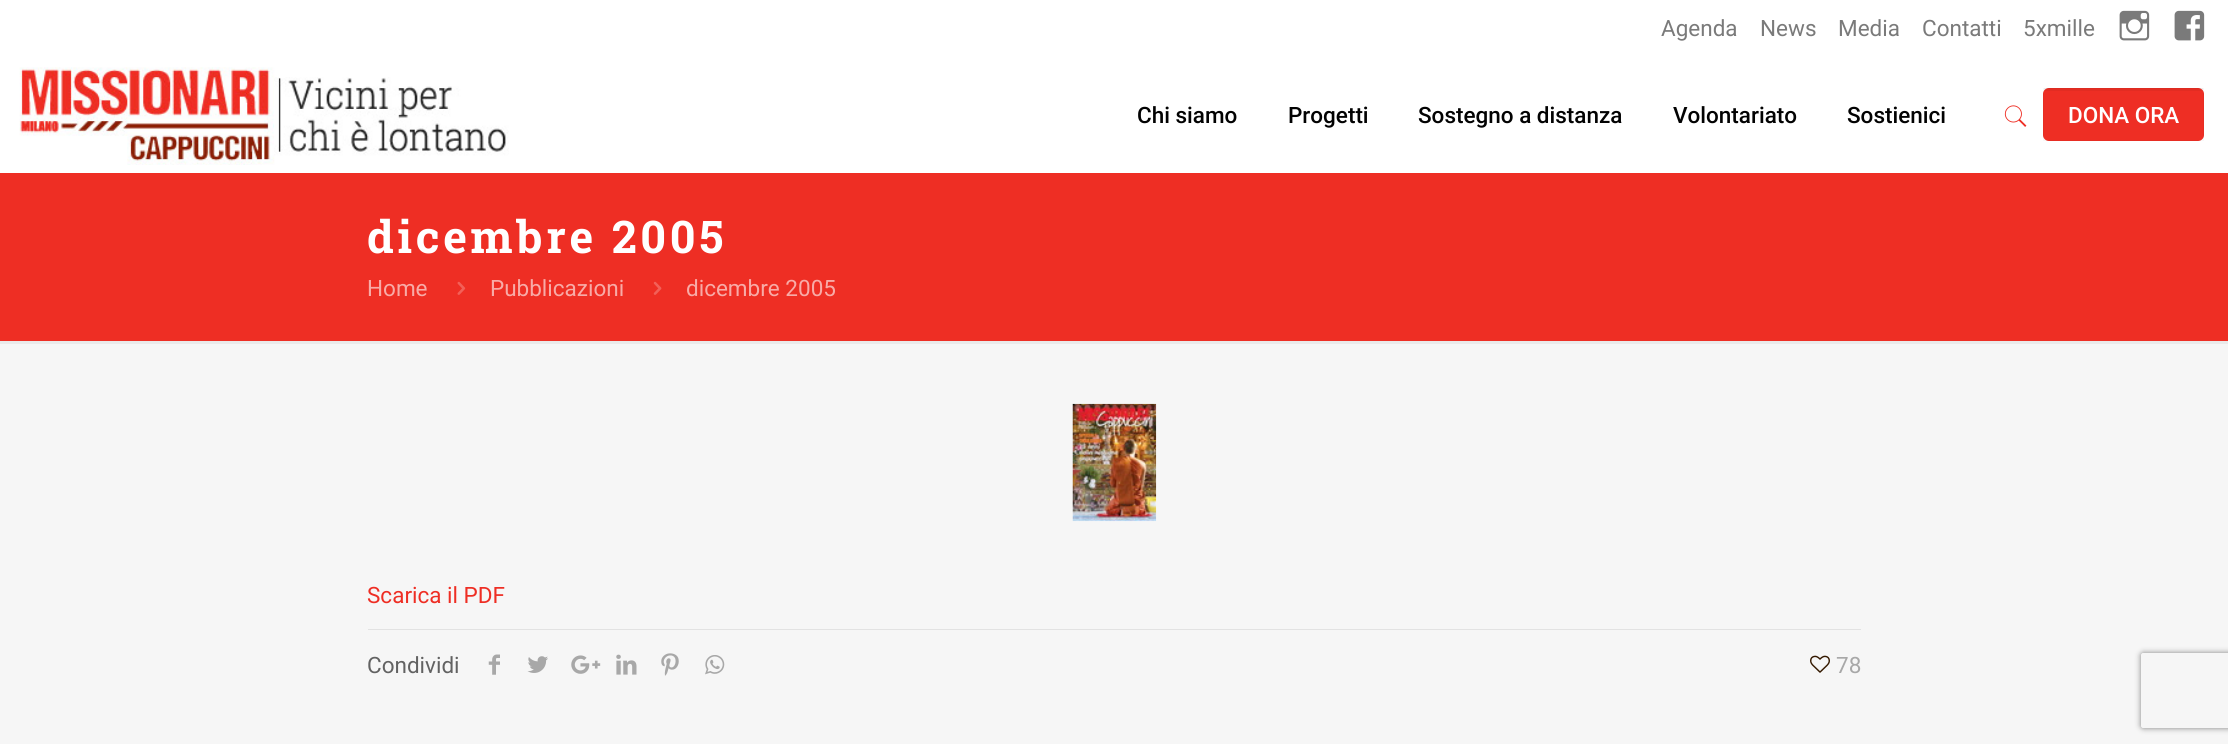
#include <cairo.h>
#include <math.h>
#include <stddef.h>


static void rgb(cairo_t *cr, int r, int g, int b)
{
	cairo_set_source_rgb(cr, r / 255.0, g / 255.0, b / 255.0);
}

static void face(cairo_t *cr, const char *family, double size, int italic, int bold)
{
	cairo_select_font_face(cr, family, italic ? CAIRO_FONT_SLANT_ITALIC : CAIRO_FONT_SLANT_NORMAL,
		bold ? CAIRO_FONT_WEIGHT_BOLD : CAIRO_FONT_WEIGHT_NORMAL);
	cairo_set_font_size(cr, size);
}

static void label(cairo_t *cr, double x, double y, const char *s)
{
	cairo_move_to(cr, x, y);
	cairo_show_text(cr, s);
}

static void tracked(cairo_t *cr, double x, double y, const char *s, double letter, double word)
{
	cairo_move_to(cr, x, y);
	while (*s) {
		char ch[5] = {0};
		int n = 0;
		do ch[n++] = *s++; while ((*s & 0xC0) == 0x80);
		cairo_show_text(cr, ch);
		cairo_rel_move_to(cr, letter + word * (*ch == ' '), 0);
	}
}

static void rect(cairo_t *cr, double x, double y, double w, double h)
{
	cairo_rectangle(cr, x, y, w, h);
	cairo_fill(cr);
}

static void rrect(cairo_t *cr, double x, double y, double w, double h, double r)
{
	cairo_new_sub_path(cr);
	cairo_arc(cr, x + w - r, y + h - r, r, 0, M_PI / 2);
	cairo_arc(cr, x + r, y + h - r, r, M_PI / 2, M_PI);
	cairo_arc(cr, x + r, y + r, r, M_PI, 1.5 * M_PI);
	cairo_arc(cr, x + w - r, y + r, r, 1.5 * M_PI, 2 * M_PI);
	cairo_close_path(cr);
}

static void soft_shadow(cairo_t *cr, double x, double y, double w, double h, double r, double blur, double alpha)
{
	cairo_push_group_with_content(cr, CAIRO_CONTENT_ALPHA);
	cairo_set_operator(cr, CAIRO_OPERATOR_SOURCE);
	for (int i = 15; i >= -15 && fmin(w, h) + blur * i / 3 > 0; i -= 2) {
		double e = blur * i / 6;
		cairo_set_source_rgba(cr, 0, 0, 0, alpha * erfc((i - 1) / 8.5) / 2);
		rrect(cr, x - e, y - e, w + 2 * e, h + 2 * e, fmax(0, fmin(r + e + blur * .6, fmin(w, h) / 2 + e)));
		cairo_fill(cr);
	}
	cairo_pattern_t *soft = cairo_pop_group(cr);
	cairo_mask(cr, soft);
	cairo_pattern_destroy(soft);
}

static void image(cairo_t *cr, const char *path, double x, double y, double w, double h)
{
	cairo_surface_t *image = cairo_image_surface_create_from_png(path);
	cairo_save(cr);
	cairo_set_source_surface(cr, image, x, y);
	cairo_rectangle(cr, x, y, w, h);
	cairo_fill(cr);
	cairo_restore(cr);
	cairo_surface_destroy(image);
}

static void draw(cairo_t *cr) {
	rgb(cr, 246, 246, 246);
	cairo_paint(cr);
	rgb(cr, 255, 255, 255);
	rect(cr, 0, 0, 2228, 173);
	face(cr, "Roboto", 22.5, 0, 0);
	rgb(cr, 122, 122, 122);
	label(cr, 1661, 36, "Agenda");
	label(cr, 1760, 36, "News");
	label(cr, 1838, 36, "Media");
	label(cr, 1922, 36, "Contatti");
	label(cr, 2023, 36, "5xmille");
	image(cr, "image0.png", 2119, 10, 31, 31);
	image(cr, "image1.png", 2174, 10, 31, 31);
	image(cr, "image2.png", 19, 67, 490, 98);
	face(cr, "Roboto Medium", 22.5, 0, 0);
	rgb(cr, 2, 2, 2);
	label(cr, 1137, 123, "Chi siamo");
	label(cr, 1288, 123, "Progetti");
	label(cr, 1418, 123, "Sostegno a distanza");
	label(cr, 1673, 123, "Volontariato");
	label(cr, 1847, 123, "Sostienici");
	image(cr, "image3.png", 2004, 105, 23, 22);
	rgb(cr, 238, 46, 36);
	rrect(cr, 2043, 88, 161, 53, 6);
	cairo_fill(cr);
	cairo_set_source_rgba(cr, 0, 0, 0, 0.05);
	rect(cr, 2044, 88, 159, 3);
	cairo_rectangle(cr, 2043.5, 88.5, 160, 52);
	cairo_set_source_rgba(cr, 0, 0, 0, 0.03);
	cairo_set_line_width(cr, 1);
	cairo_stroke(cr);
	rgb(cr, 255, 255, 255);
	label(cr, 2068, 123, "DONA ORA");
	rgb(cr, 238, 46, 36);
	rect(cr, 0, 173, 2228, 168);
	face(cr, "Roboto Slab", 45, 0, 1);
	rgb(cr, 255, 255, 255);
	tracked(cr, 367, 253, "dicembre 2005", 3.75, 0);
	face(cr, "Roboto", 22.5, 0, 0);
	rgb(cr, 248, 171, 167);
	label(cr, 367, 296, "Home");
	image(cr, "image4.png", 457, 281, 9, 14);
	label(cr, 490, 296, "Pubblicazioni");
	image(cr, "image5.png", 653, 281, 9, 14);
	label(cr, 686, 296, "dicembre 2005");
	rgb(cr, 234, 234, 234);
	rect(cr, 0, 341, 2228, 3);
	image(cr, "image6.png", 1072, 403, 85, 119);
	rgb(cr, 238, 46, 36);
	label(cr, 367, 603, "Scarica il PDF");
	rgb(cr, 226, 226, 226);
	rect(cr, 368, 629, 1493, 1);
	rgb(cr, 98, 98, 98);
	label(cr, 367, 673, "Condividi");
	image(cr, "image7.png", 488, 654, 12, 21);
	image(cr, "image8.png", 527, 656, 21, 17);
	image(cr, "image9.png", 571, 655, 30, 19);
	image(cr, "image10.png", 616, 654, 21, 21);
	image(cr, "image11.png", 661, 653, 18, 23);
	image(cr, "image12.png", 705, 655, 20, 20);
	image(cr, "image13.png", 1810, 655, 20, 18);
	rgb(cr, 168, 168, 168);
	label(cr, 1836, 673, "78");
	cairo_save(cr);
	cairo_set_fill_rule(cr, CAIRO_FILL_RULE_EVEN_ODD);
	cairo_new_path(cr);
	cairo_move_to(cr, 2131, 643);
	cairo_line_to(cr, 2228, 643);
	cairo_line_to(cr, 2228, 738);
	cairo_line_to(cr, 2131, 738);
	cairo_close_path(cr);
	cairo_move_to(cr, 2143.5, 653);
	cairo_line_to(cr, 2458.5, 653);
	cairo_curve_to(cr, 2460, 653, 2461, 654, 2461, 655.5);
	cairo_line_to(cr, 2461, 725.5);
	cairo_curve_to(cr, 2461, 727, 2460, 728, 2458.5, 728);
	cairo_line_to(cr, 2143.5, 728);
	cairo_curve_to(cr, 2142, 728, 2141, 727, 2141, 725.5);
	cairo_line_to(cr, 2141, 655.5);
	cairo_curve_to(cr, 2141, 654, 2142, 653, 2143.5, 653);
	cairo_close_path(cr);
	cairo_clip(cr);
	rgb(cr, 128, 128, 128);
	soft_shadow(cr, 2141, 653, 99, 75, 2.5, 3, 1);
	cairo_restore(cr);
}

int main(void) {
	cairo_surface_t *surface = cairo_image_surface_create(CAIRO_FORMAT_RGB24, 2228, 744);
	cairo_t *cr = cairo_create(surface);
	cairo_font_options_t *options = cairo_font_options_create();
	cairo_font_options_set_hint_metrics(options, CAIRO_HINT_METRICS_OFF);
	cairo_font_options_set_hint_style(options, CAIRO_HINT_STYLE_NONE);
	cairo_set_font_options(cr, options);
	cairo_set_miter_limit(cr, 4);
	draw(cr);
	cairo_surface_write_to_png(surface, "render.png");
	cairo_font_options_destroy(options);
	cairo_destroy(cr);
	cairo_surface_destroy(surface);
	return 0;
}
